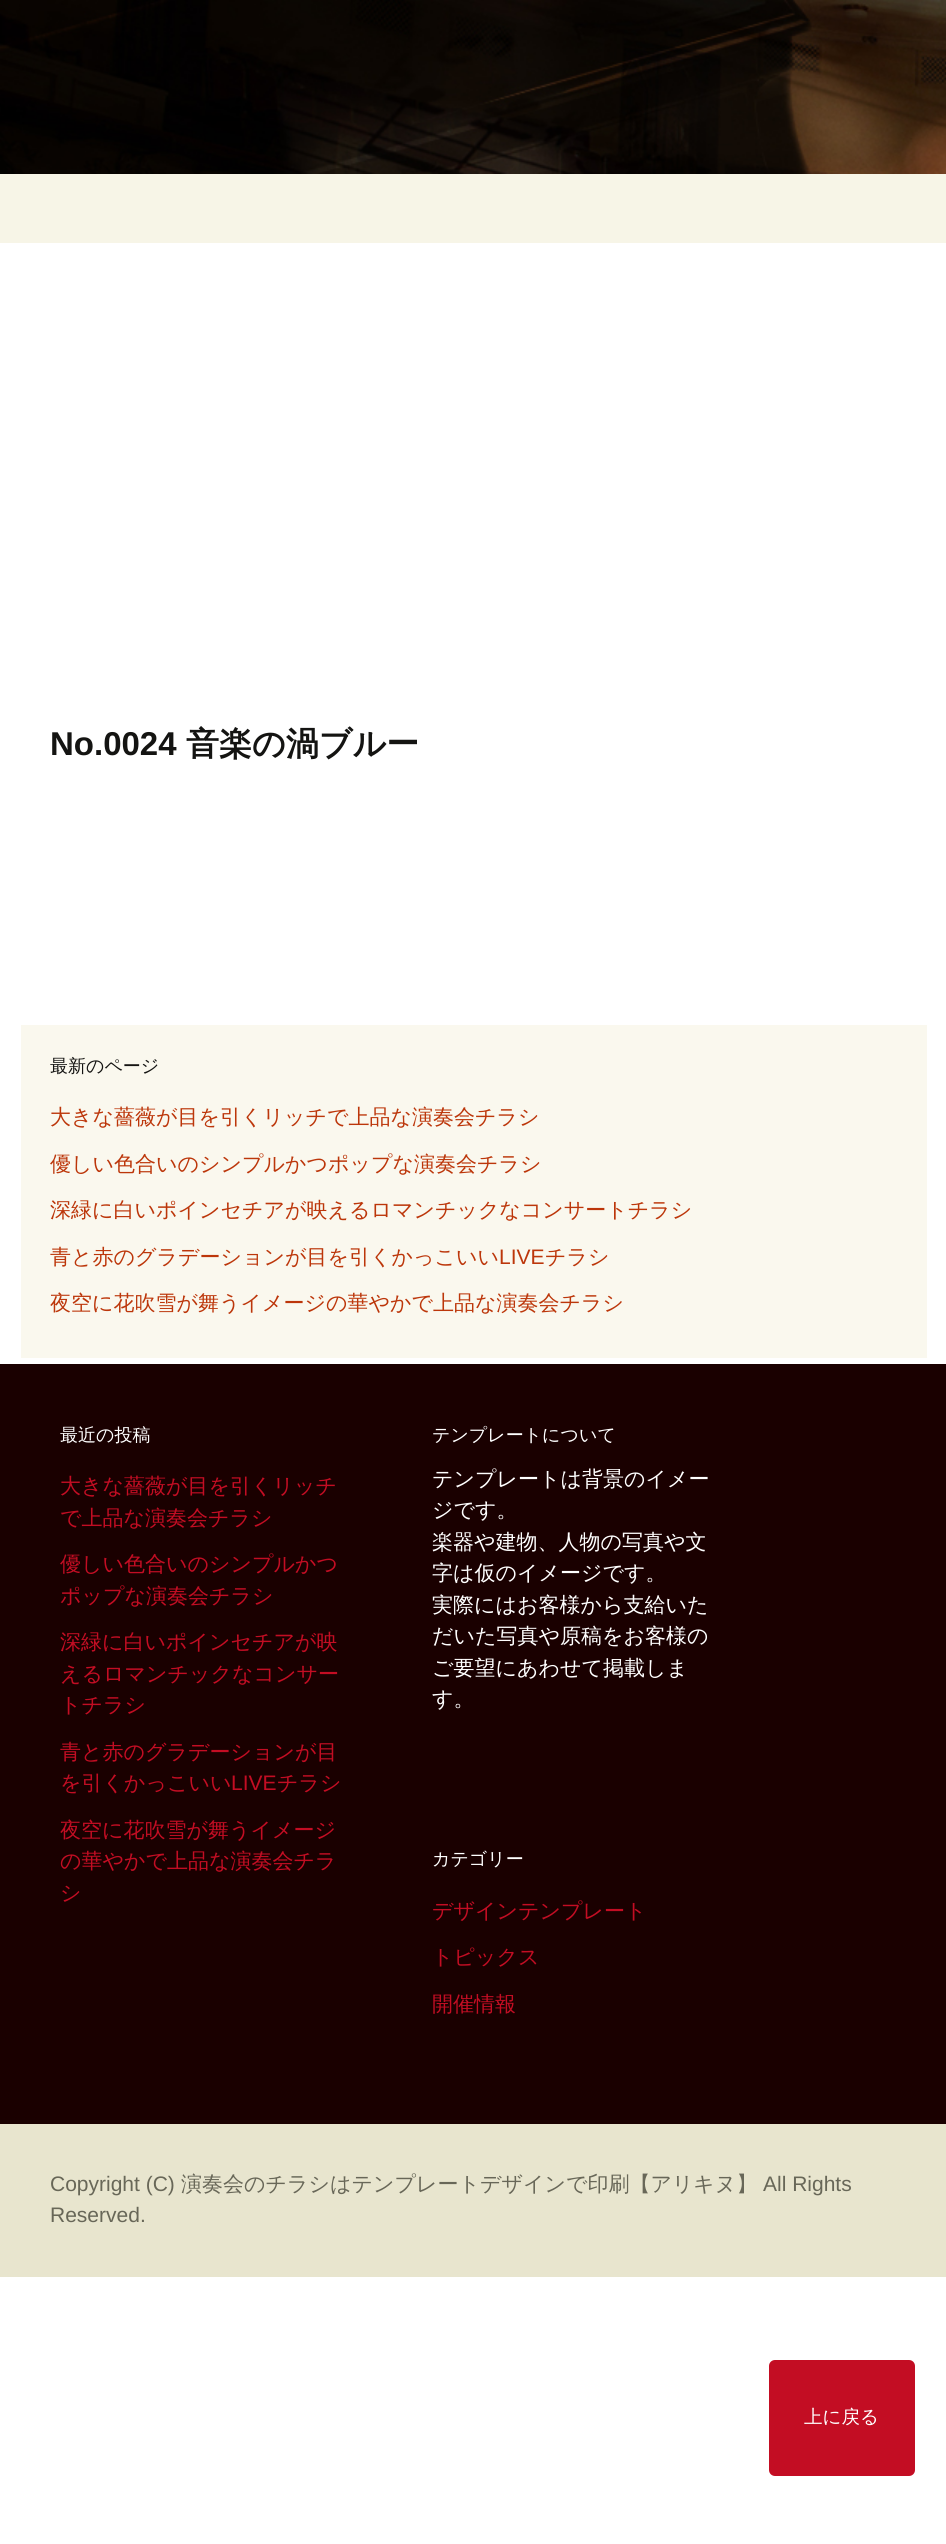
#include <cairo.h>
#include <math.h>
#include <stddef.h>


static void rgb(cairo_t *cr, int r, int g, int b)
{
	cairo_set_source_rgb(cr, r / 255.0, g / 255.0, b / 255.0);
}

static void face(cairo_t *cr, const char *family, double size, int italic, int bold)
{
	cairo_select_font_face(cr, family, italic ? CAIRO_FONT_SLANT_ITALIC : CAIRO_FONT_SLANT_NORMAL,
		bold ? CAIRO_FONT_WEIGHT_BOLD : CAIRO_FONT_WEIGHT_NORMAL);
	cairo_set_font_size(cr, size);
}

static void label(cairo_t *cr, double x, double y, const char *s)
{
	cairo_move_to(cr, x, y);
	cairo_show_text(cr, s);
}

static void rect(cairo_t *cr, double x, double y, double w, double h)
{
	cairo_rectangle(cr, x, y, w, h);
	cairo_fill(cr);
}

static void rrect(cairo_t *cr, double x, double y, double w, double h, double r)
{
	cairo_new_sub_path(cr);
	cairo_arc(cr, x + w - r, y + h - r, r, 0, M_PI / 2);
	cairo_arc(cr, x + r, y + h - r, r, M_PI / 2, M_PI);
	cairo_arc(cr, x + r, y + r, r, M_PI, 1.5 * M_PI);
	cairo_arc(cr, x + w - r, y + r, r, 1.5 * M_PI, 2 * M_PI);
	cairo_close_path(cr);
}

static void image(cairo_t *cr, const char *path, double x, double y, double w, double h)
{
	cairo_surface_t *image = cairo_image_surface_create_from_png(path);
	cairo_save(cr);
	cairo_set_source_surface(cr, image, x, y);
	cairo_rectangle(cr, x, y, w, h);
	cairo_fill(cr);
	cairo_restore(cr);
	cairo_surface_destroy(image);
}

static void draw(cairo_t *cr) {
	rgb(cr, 255, 255, 255);
	cairo_paint(cr);
	image(cr, "image0.png", 0, 0, 946, 174);
	rgb(cr, 247, 245, 231);
	rect(cr, 0, 174, 946, 69);
	face(cr, "Liberation Sans", 33, 0, 1);
	rgb(cr, 20, 20, 18);
	label(cr, 50, 755, "No.0024");
	face(cr, "WenQuanYi Zen Hei", 33, 0, 1);
	label(cr, 186, 755, "音楽の渦ブルー");
	rgb(cr, 250, 248, 238);
	rect(cr, 21, 1025, 906, 333);
	face(cr, "WenQuanYi Zen Hei Medium", 18, 0, 0);
	rgb(cr, 20, 20, 18);
	label(cr, 50, 1072, "最新のページ");
	face(cr, "WenQuanYi Zen Hei Medium", 21, 0, 0);
	rgb(cr, 188, 54, 10);
	label(cr, 50, 1124, "大きな薔薇が目を引くリッチで上品な演奏会チラシ");
	label(cr, 50, 1171, "優しい色合いのシンプルかつポップな演奏会チラシ");
	label(cr, 50, 1217, "深緑に白いポインセチアが映えるロマンチックなコンサートチラシ");
	label(cr, 50, 1264, "青と赤のグラデーションが目を引くかっこいい");
	face(cr, "Liberation Sans", 21, 0, 0);
	label(cr, 499, 1264, "LIVE");
	face(cr, "WenQuanYi Zen Hei Medium", 21, 0, 0);
	label(cr, 545, 1264, "チラシ");
	label(cr, 50, 1310, "夜空に花吹雪が舞うイメージの華やかで上品な演奏会チラシ");
	rgb(cr, 232, 229, 206);
	rect(cr, 0, 2124, 946, 153);
	rgb(cr, 26, 0, 0);
	rect(cr, 0, 1364, 946, 760);
	face(cr, "WenQuanYi Zen Hei Medium", 18, 0, 0);
	rgb(cr, 255, 255, 255);
	label(cr, 60, 1441, "最近の投稿");
	face(cr, "WenQuanYi Zen Hei Medium", 21, 0, 0);
	rgb(cr, 195, 13, 35);
	label(cr, 60, 1493, "大きな薔薇が目を引くリッチ");
	label(cr, 60, 1525, "で上品な演奏会チラシ");
	label(cr, 60, 1571, "優しい色合いのシンプルかつ");
	label(cr, 60, 1603, "ポップな演奏会チラシ");
	label(cr, 60, 1649, "深緑に白いポインセチアが映");
	label(cr, 60, 1681, "えるロマンチックなコンサー");
	label(cr, 60, 1712, "トチラシ");
	label(cr, 60, 1759, "青と赤のグラデーションが目");
	label(cr, 60, 1790, "を引くかっこいい");
	face(cr, "Liberation Sans", 21, 0, 0);
	label(cr, 231, 1790, "LIVE");
	face(cr, "WenQuanYi Zen Hei Medium", 21, 0, 0);
	label(cr, 277, 1790, "チラシ");
	label(cr, 60, 1837, "夜空に花吹雪が舞うイメージ");
	label(cr, 60, 1868, "の華やかで上品な演奏会チラ");
	label(cr, 60, 1900, "シ");
	face(cr, "WenQuanYi Zen Hei Medium", 18, 0, 0);
	rgb(cr, 255, 255, 255);
	label(cr, 432, 1441, "テンプレートについて");
	face(cr, "WenQuanYi Zen Hei Medium", 21, 0, 0);
	label(cr, 432, 1486, "テンプレートは背景のイメー");
	label(cr, 432, 1517, "ジです。");
	label(cr, 432, 1549, "楽器や建物、人物の写真や文");
	label(cr, 432, 1580, "字は仮のイメージです。");
	label(cr, 432, 1612, "実際にはお客様から支給いた");
	label(cr, 432, 1643, "だいた写真や原稿をお客様の");
	label(cr, 432, 1675, "ご要望にあわせて掲載しま");
	label(cr, 432, 1706, "す。");
	face(cr, "WenQuanYi Zen Hei Medium", 18, 0, 0);
	label(cr, 432, 1865, "カテゴリー");
	face(cr, "WenQuanYi Zen Hei Medium", 21, 0, 0);
	rgb(cr, 195, 13, 35);
	label(cr, 432, 1918, "デザインテンプレート");
	label(cr, 432, 1964, "トピックス");
	label(cr, 432, 2011, "開催情報");
	face(cr, "Liberation Sans", 21, 0, 0);
	rgb(cr, 104, 103, 88);
	label(cr, 50, 2191, "Copyright (C)");
	face(cr, "WenQuanYi Zen Hei Medium", 21, 0, 0);
	label(cr, 181, 2191, "演奏会のチラシはテンプレートデザインで印刷【アリキヌ】");
	face(cr, "Liberation Sans", 21, 0, 0);
	label(cr, 763, 2191, "All Rights");
	label(cr, 50, 2222, "Reserved.");
	rgb(cr, 195, 13, 35);
	rrect(cr, 768, 2359, 148, 118, 7);
	cairo_fill_preserve(cr);
	rgb(cr, 255, 255, 255);
	cairo_stroke(cr);
	face(cr, "WenQuanYi Zen Hei Medium", 18.5, 0, 0);
	label(cr, 804, 2423, "上に戻る");
}

int main(void) {
	cairo_surface_t *surface = cairo_image_surface_create(CAIRO_FORMAT_RGB24, 946, 2544);
	cairo_t *cr = cairo_create(surface);
	cairo_font_options_t *options = cairo_font_options_create();
	cairo_font_options_set_hint_metrics(options, CAIRO_HINT_METRICS_OFF);
	cairo_font_options_set_hint_style(options, CAIRO_HINT_STYLE_NONE);
	cairo_set_font_options(cr, options);
	cairo_set_miter_limit(cr, 4);
	draw(cr);
	cairo_surface_write_to_png(surface, "render.png");
	cairo_font_options_destroy(options);
	cairo_destroy(cr);
	cairo_surface_destroy(surface);
	return 0;
}
